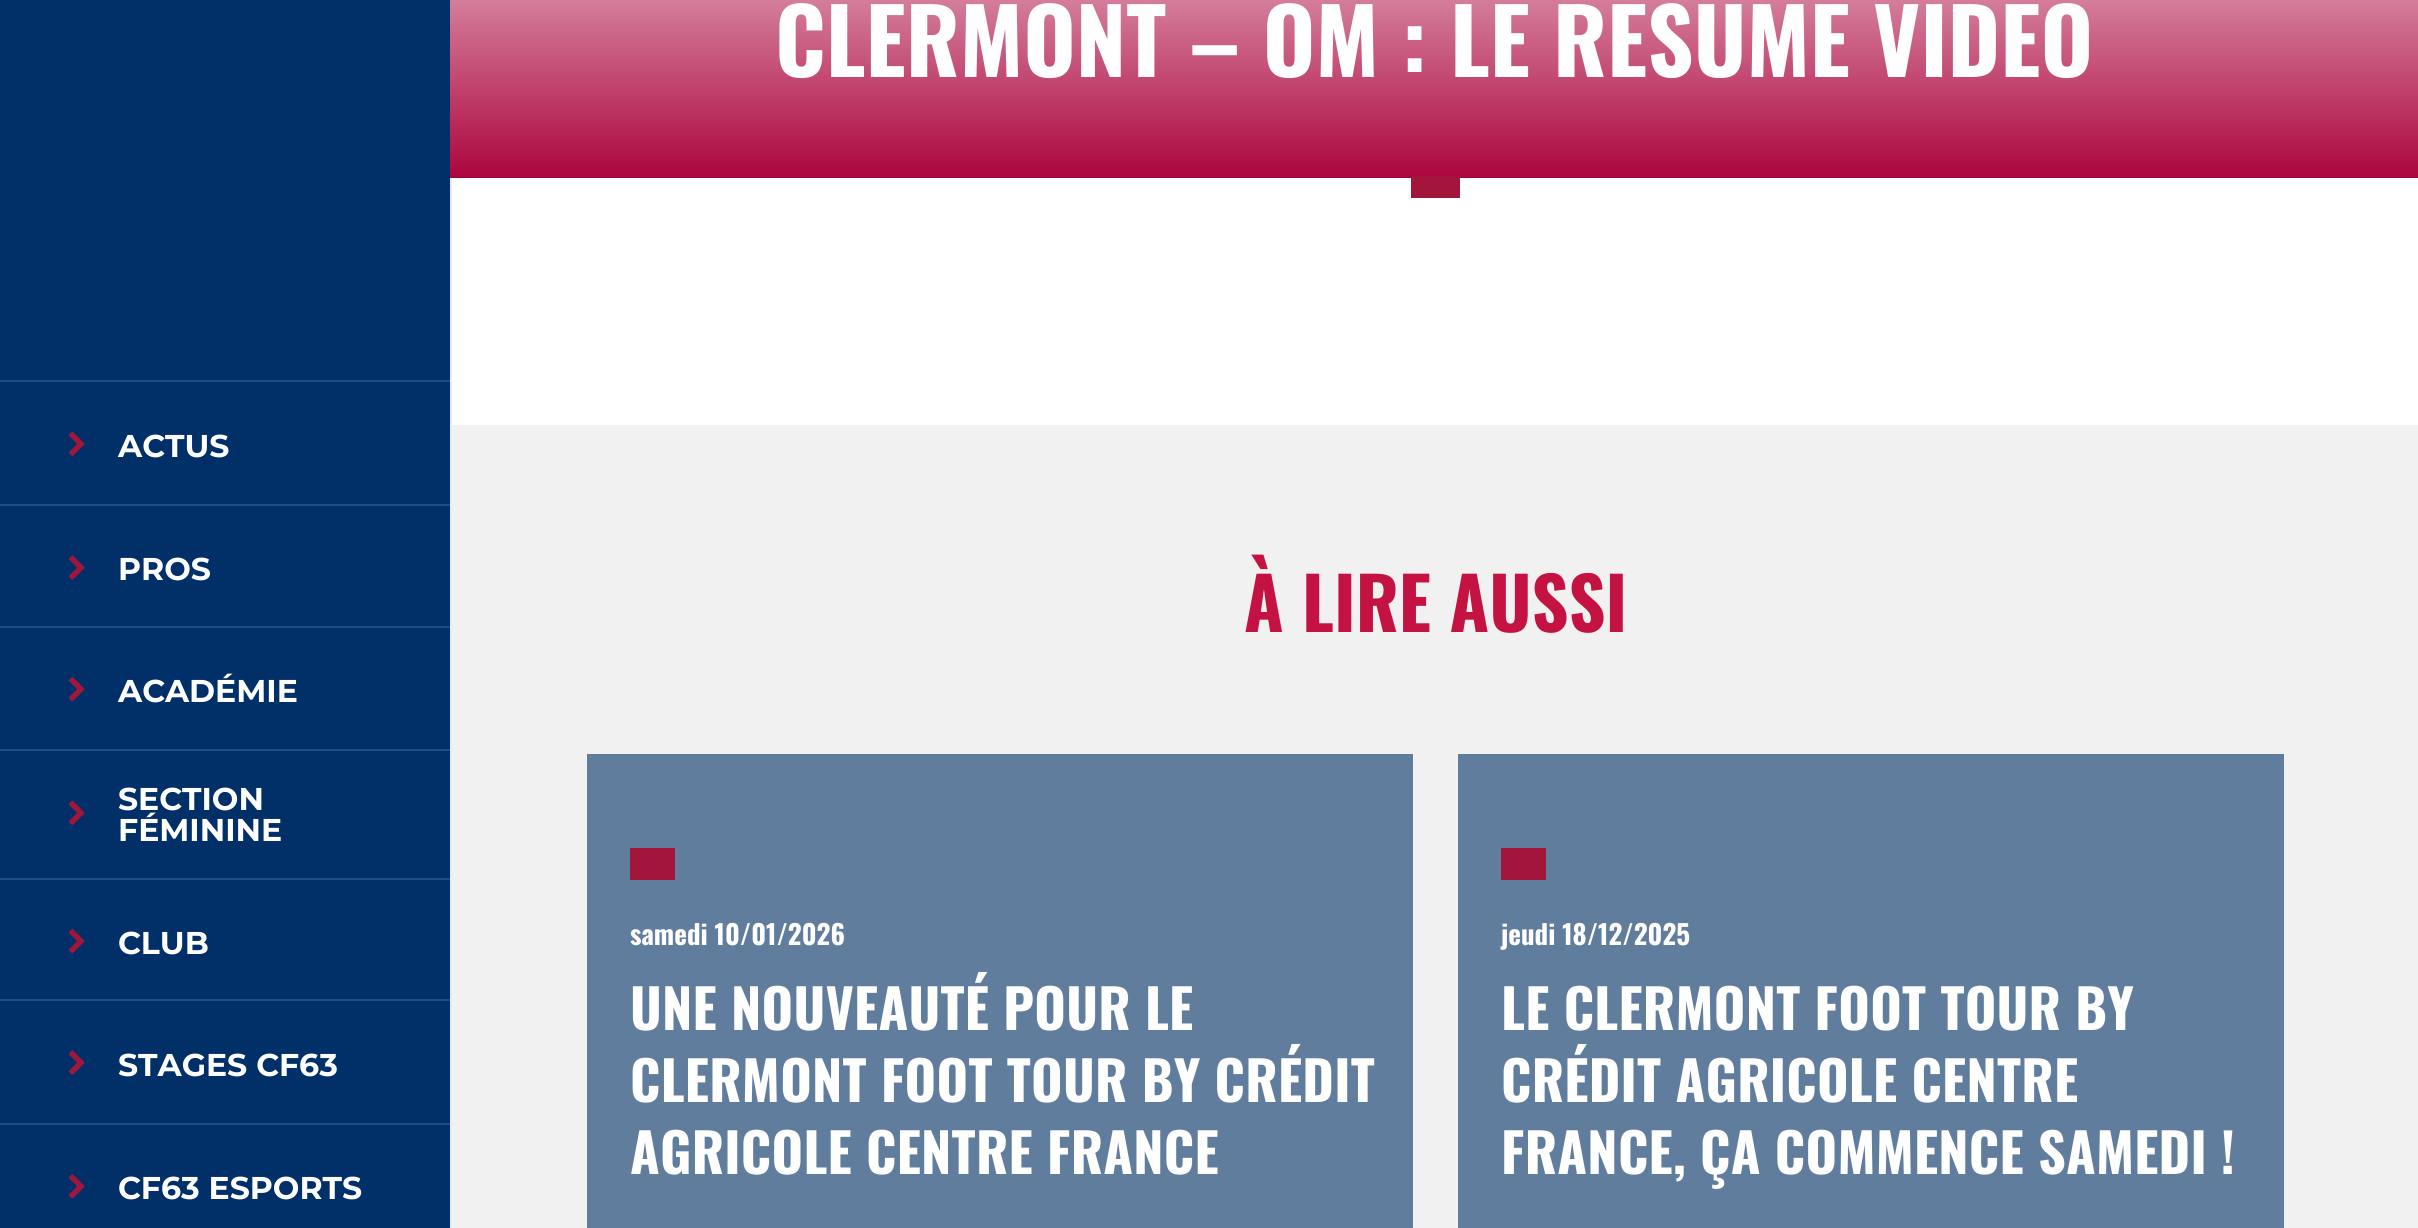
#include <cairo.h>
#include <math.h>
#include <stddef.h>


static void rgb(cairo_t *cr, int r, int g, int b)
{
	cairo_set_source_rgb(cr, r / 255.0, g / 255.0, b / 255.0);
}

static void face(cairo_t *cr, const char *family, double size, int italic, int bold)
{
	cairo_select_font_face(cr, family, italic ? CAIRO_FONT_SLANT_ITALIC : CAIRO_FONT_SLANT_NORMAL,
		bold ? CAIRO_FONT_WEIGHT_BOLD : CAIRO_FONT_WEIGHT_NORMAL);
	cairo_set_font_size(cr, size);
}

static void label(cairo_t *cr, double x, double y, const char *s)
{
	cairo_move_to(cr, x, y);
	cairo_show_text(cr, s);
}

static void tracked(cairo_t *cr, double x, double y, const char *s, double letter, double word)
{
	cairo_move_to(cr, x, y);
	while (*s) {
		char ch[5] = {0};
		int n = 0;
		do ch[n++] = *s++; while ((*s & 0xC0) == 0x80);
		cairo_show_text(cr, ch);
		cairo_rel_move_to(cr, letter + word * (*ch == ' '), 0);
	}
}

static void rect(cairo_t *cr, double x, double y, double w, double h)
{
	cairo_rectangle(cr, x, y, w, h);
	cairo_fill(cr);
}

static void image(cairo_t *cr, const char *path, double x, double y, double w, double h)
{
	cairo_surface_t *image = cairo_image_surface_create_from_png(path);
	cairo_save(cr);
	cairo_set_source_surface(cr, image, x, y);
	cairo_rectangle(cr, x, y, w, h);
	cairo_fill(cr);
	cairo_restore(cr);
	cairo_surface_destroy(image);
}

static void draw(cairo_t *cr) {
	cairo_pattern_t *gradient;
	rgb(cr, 255, 255, 255);
	cairo_paint(cr);
	rgb(cr, 1, 48, 104);
	rect(cr, 0, 0, 450, 1228);
	rgb(cr, 31, 78, 134);
	rect(cr, 0, 380, 450, 2);
	rect(cr, 0, 504, 450, 2);
	image(cr, "image0.png", 68, 431, 17, 25);
	face(cr, "Montserrat", 31.5, 0, 1);
	rgb(cr, 254, 254, 254);
	label(cr, 118, 457, "ACTUS");
	rgb(cr, 31, 78, 134);
	rect(cr, 0, 626, 450, 2);
	image(cr, "image1.png", 68, 555, 17, 25);
	rgb(cr, 254, 254, 254);
	label(cr, 118, 580, "PROS");
	rgb(cr, 31, 78, 134);
	rect(cr, 0, 749, 450, 2);
	image(cr, "image2.png", 68, 677, 17, 25);
	rgb(cr, 254, 254, 254);
	label(cr, 118, 702, "ACADÉMIE");
	rgb(cr, 31, 78, 134);
	rect(cr, 0, 878, 450, 2);
	image(cr, "image0.png", 68, 800, 17, 25);
	rgb(cr, 254, 254, 254);
	label(cr, 118, 810, "SECTION");
	label(cr, 118, 841, "FÉMININE");
	rgb(cr, 31, 78, 134);
	rect(cr, 0, 999, 450, 2);
	image(cr, "image2.png", 68, 929, 17, 25);
	rgb(cr, 254, 254, 254);
	label(cr, 118, 954, "CLUB");
	rgb(cr, 31, 78, 134);
	rect(cr, 0, 1123, 450, 2);
	image(cr, "image1.png", 68, 1050, 17, 25);
	rgb(cr, 254, 254, 254);
	label(cr, 118, 1076, "STAGES CF63");
	image(cr, "image3.png", 68, 1174, 17, 25);
	label(cr, 118, 1199, "CF63 ESPORTS");
	gradient = cairo_pattern_create_linear(1434, 178, 1434, -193);
	cairo_pattern_add_color_stop_rgba(gradient, 0, 0.675, 0.02, 0.243, 1);
	cairo_pattern_add_color_stop_rgba(gradient, 1, 1, 1, 1, 1);
	cairo_set_source(cr, gradient);
	cairo_pattern_destroy(gradient);
	rect(cr, 450, 0, 1968, 178);
	face(cr, "Oswald", 90, 0, 1);
	rgb(cr, 254, 254, 254);
	label(cr, 775, 77, "CLERMONT – OM : LE RÉSUMÉ VIDÉO");
	rgb(cr, 163, 22, 59);
	rect(cr, 1411, 176, 49, 22);
	rgb(cr, 234, 234, 234);
	rect(cr, 450, 178, 2, 1050);
	rgb(cr, 241, 241, 241);
	rect(cr, 452, 425, 1966, 803);
	face(cr, "Oswald", 72, 0, 1);
	rgb(cr, 196, 19, 67);
	label(cr, 1244, 632, "À LIRE AUSSI");
	rgb(cr, 97, 125, 158);
	rect(cr, 587, 754, 826, 474);
	rgb(cr, 163, 22, 59);
	rect(cr, 630, 848, 45, 32);
	face(cr, "Oswald", 27, 0, 1);
	rgb(cr, 254, 254, 254);
	label(cr, 630, 945, "samedi 10/01/2026");
	face(cr, "Oswald", 54, 0, 1);
	tracked(cr, 630, 1030, "UNE NOUVEAUTÉ POUR LE", 0.25, 0);
	tracked(cr, 630, 1102, "CLERMONT FOOT TOUR BY CRÉDIT", 0.25, 0);
	tracked(cr, 630, 1174, "AGRICOLE CENTRE FRANCE", 0.25, 0);
	rgb(cr, 97, 125, 158);
	rect(cr, 1458, 754, 826, 474);
	rgb(cr, 163, 22, 59);
	rect(cr, 1501, 848, 45, 32);
	face(cr, "Oswald", 27, 0, 1);
	rgb(cr, 254, 254, 254);
	label(cr, 1501, 945, "jeudi 18/12/2025");
	face(cr, "Oswald", 54, 0, 1);
	tracked(cr, 1501, 1030, "LE CLERMONT FOOT TOUR BY", 0.25, 0);
	tracked(cr, 1501, 1102, "CRÉDIT AGRICOLE CENTRE", 0.25, 0);
	tracked(cr, 1501, 1174, "FRANCE, ÇA COMMENCE SAMEDI !", 0.25, 0);
}

int main(void) {
	cairo_surface_t *surface = cairo_image_surface_create(CAIRO_FORMAT_RGB24, 2418, 1228);
	cairo_t *cr = cairo_create(surface);
	cairo_font_options_t *options = cairo_font_options_create();
	cairo_font_options_set_hint_metrics(options, CAIRO_HINT_METRICS_OFF);
	cairo_font_options_set_hint_style(options, CAIRO_HINT_STYLE_NONE);
	cairo_set_font_options(cr, options);
	cairo_set_miter_limit(cr, 4);
	draw(cr);
	cairo_surface_write_to_png(surface, "render.png");
	cairo_font_options_destroy(options);
	cairo_destroy(cr);
	cairo_surface_destroy(surface);
	return 0;
}
